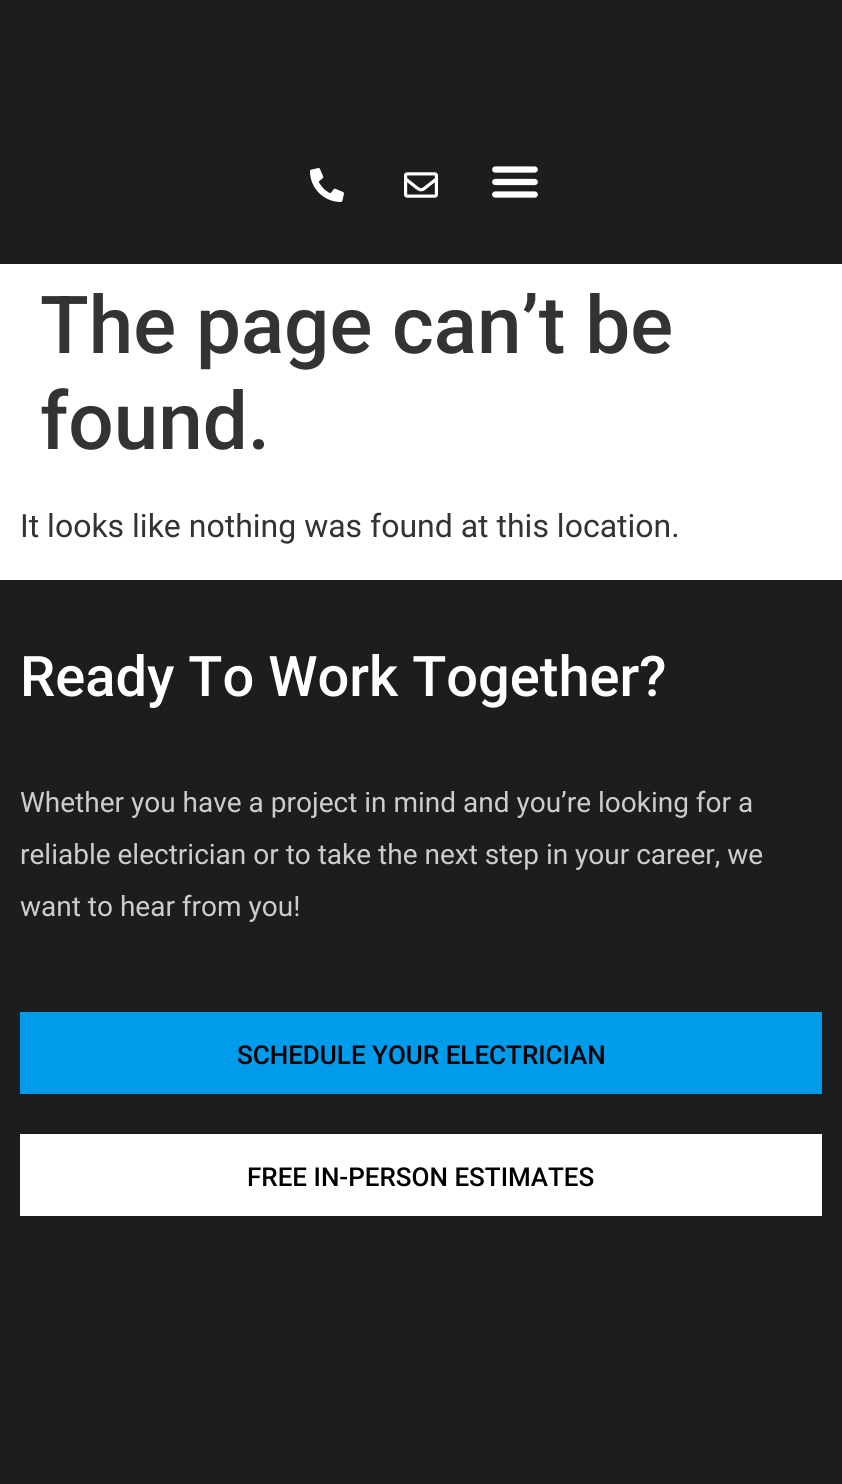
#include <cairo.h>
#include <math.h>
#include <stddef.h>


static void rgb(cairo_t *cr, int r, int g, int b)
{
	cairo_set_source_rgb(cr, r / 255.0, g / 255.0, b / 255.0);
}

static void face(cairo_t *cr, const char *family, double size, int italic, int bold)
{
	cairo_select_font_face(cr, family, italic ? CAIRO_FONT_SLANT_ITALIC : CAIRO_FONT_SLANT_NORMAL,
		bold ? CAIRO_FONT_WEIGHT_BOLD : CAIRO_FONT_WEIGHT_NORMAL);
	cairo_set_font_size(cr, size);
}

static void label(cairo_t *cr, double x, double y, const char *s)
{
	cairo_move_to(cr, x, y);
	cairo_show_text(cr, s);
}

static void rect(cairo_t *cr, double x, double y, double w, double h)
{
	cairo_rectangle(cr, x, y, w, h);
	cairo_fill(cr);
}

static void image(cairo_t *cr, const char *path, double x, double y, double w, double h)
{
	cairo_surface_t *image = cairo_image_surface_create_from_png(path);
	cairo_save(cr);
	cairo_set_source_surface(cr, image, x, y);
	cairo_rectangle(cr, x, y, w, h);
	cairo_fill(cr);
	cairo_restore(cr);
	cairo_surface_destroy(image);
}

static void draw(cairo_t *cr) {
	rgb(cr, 255, 255, 255);
	cairo_paint(cr);
	rgb(cr, 27, 29, 31);
	rect(cr, 0, 0, 842, 264);
	image(cr, "image0.png", 310, 168, 34, 34);
	image(cr, "image1.png", 404, 172, 34, 26);
	image(cr, "image2.png", 492, 166, 46, 32);
	face(cr, "Roboto Medium", 80, 0, 0);
	rgb(cr, 51, 51, 51);
	label(cr, 40, 353, "The page can’t be");
	label(cr, 40, 449, "found.");
	face(cr, "Roboto", 32, 0, 0);
	label(cr, 20, 537, "It looks like nothing was found at this location.");
	rgb(cr, 27, 29, 31);
	rect(cr, 0, 580, 842, 904);
	face(cr, "Roboto Medium", 56, 0, 0);
	rgb(cr, 255, 255, 255);
	label(cr, 20, 696, "Ready To Work Together?");
	face(cr, "Roboto", 28, 0, 0);
	rgb(cr, 205, 205, 205);
	label(cr, 20, 812, "Whether you have a project in mind and you’re looking for a");
	label(cr, 20, 864, "reliable electrician or to take the next step in your career, we");
	label(cr, 20, 916, "want to hear from you!");
	rgb(cr, 0, 156, 235);
	rect(cr, 20, 1012, 802, 82);
	face(cr, "Roboto Medium", 26, 0, 0);
	rgb(cr, 0, 0, 0);
	label(cr, 237, 1064, "SCHEDULE YOUR ELECTRICIAN");
	rgb(cr, 255, 255, 255);
	rect(cr, 20, 1134, 802, 82);
	rgb(cr, 0, 0, 0);
	label(cr, 247, 1186, "FREE IN-PERSON ESTIMATES");
}

int main(void) {
	cairo_surface_t *surface = cairo_image_surface_create(CAIRO_FORMAT_RGB24, 842, 1484);
	cairo_t *cr = cairo_create(surface);
	cairo_font_options_t *options = cairo_font_options_create();
	cairo_font_options_set_hint_metrics(options, CAIRO_HINT_METRICS_OFF);
	cairo_font_options_set_hint_style(options, CAIRO_HINT_STYLE_NONE);
	cairo_set_font_options(cr, options);
	cairo_set_miter_limit(cr, 4);
	draw(cr);
	cairo_surface_write_to_png(surface, "render.png");
	cairo_font_options_destroy(options);
	cairo_destroy(cr);
	cairo_surface_destroy(surface);
	return 0;
}
